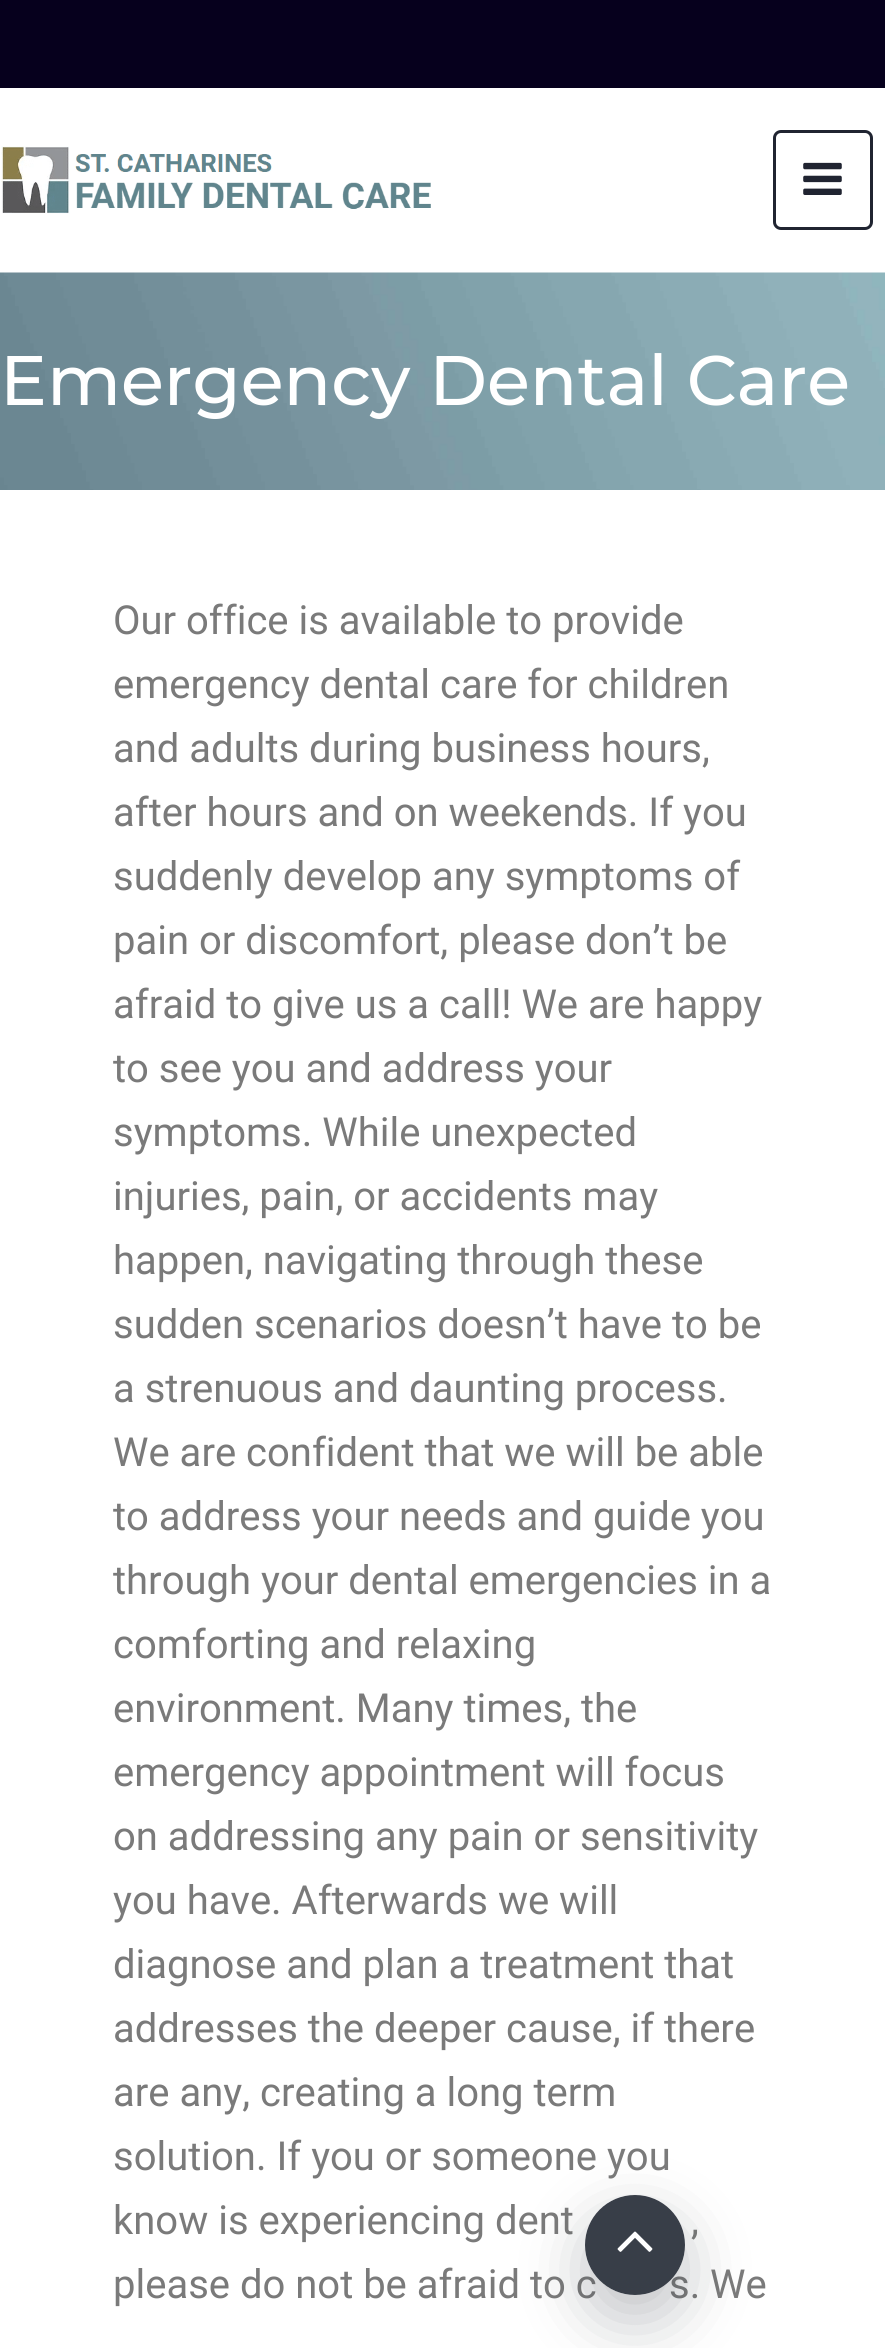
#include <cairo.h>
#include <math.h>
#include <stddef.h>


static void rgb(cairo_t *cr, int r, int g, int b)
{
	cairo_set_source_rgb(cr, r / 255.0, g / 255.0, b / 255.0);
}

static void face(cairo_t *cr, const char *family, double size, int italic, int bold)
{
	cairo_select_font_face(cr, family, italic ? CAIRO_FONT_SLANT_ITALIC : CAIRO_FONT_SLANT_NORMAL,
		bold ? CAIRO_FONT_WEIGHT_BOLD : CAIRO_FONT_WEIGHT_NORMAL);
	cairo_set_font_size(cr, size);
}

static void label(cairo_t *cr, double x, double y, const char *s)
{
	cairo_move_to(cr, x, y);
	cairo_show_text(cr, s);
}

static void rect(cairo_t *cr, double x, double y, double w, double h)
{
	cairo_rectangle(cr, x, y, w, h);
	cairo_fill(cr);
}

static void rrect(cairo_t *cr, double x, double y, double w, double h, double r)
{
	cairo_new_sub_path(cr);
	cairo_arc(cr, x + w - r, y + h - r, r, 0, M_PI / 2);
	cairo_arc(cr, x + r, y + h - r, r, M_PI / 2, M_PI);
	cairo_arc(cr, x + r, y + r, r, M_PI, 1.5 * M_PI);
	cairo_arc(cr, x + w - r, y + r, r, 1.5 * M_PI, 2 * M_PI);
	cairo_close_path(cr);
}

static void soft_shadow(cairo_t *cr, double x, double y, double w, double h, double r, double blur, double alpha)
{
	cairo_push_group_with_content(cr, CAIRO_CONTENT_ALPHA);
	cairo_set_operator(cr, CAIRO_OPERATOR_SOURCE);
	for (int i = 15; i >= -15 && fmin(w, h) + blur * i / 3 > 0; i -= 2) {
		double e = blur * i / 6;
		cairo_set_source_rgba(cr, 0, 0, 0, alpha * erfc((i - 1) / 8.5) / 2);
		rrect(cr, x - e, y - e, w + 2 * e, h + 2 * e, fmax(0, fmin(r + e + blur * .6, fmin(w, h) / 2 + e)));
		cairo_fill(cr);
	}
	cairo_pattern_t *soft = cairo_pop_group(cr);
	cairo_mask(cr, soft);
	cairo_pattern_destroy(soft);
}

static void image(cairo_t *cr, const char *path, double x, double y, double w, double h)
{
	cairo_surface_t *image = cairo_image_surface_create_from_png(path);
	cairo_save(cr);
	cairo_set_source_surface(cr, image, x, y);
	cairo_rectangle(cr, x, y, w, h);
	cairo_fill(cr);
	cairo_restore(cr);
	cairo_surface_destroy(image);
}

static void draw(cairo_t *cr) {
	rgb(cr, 255, 255, 255);
	cairo_paint(cr);
	rgb(cr, 6, 0, 29);
	rect(cr, 0, 0, 885, 88);
	image(cr, "image0.png", 1, 146, 430, 68);
	rrect(cr, 774.5, 131.5, 97, 97, 6.5);
	rgb(cr, 32, 36, 49);
	cairo_set_line_width(cr, 3);
	cairo_stroke(cr);
	image(cr, "image1.png", 803, 162, 39, 33);
	image(cr, "image2.png", 0, 272, 885, 218);
	face(cr, "Montserrat Medium", 70, 0, 0);
	rgb(cr, 255, 255, 255);
	label(cr, 0, 405, "Emergency Dental Care");
	face(cr, "Roboto", 40, 0, 0);
	rgb(cr, 122, 122, 122);
	label(cr, 113, 634, "Our office is available to provide");
	label(cr, 113, 698, "emergency dental care for children");
	label(cr, 113, 762, "and adults during business hours,");
	label(cr, 113, 826, "after hours and on weekends. If you");
	label(cr, 113, 890, "suddenly develop any symptoms of");
	label(cr, 113, 954, "pain or discomfort, please don’t be");
	label(cr, 113, 1018, "afraid to give us a call! We are happy");
	label(cr, 113, 1082, "to see you and address your");
	label(cr, 113, 1146, "symptoms. While unexpected");
	label(cr, 113, 1210, "injuries, pain, or accidents may");
	label(cr, 113, 1274, "happen, navigating through these");
	label(cr, 113, 1338, "sudden scenarios doesn’t have to be");
	label(cr, 113, 1402, "a strenuous and daunting process.");
	label(cr, 113, 1466, "We are confident that we will be able");
	label(cr, 113, 1530, "to address your needs and guide you");
	label(cr, 113, 1594, "through your dental emergencies in a");
	label(cr, 113, 1658, "comforting and relaxing");
	label(cr, 113, 1722, "environment. Many times, the");
	label(cr, 113, 1786, "emergency appointment will focus");
	label(cr, 113, 1850, "on addressing any pain or sensitivity");
	label(cr, 113, 1914, "you have. Afterwards we will");
	label(cr, 113, 1978, "diagnose and plan a treatment that");
	label(cr, 113, 2042, "addresses the deeper cause, if there");
	label(cr, 113, 2106, "are any, creating a long term");
	label(cr, 113, 2170, "solution. If you or someone you");
	label(cr, 113, 2234, "know is experiencing dent");
	label(cr, 691, 2234, ",");
	label(cr, 113, 2298, "please do not be afraid to c");
	label(cr, 669, 2298, "s. We");
	rgb(cr, 56, 62, 72);
	cairo_new_path(cr);
	cairo_arc(cr, 635, 2245, 50, 0, 2 * M_PI);
	cairo_fill(cr);
	cairo_save(cr);
	cairo_set_fill_rule(cr, CAIRO_FILL_RULE_EVEN_ODD);
	cairo_new_path(cr);
	cairo_move_to(cr, 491, 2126);
	cairo_line_to(cr, 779, 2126);
	cairo_line_to(cr, 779, 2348);
	cairo_line_to(cr, 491, 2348);
	cairo_close_path(cr);
	cairo_move_to(cr, 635, 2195);
	cairo_curve_to(cr, 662.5, 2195, 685, 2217.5, 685, 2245);
	cairo_curve_to(cr, 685, 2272.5, 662.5, 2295, 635, 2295);
	cairo_curve_to(cr, 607.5, 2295, 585, 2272.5, 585, 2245);
	cairo_curve_to(cr, 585, 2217.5, 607.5, 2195, 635, 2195);
	cairo_close_path(cr);
	cairo_clip(cr);
	rgb(cr, 56, 62, 72);
	soft_shadow(cr, 585, 2220, 100, 100, 50, 31, 0.3);
	cairo_restore(cr);
	image(cr, "image3.png", 617, 2231, 36, 21);
}

int main(void) {
	cairo_surface_t *surface = cairo_image_surface_create(CAIRO_FORMAT_RGB24, 885, 2348);
	cairo_t *cr = cairo_create(surface);
	cairo_font_options_t *options = cairo_font_options_create();
	cairo_font_options_set_hint_metrics(options, CAIRO_HINT_METRICS_OFF);
	cairo_font_options_set_hint_style(options, CAIRO_HINT_STYLE_NONE);
	cairo_set_font_options(cr, options);
	cairo_set_miter_limit(cr, 4);
	draw(cr);
	cairo_surface_write_to_png(surface, "render.png");
	cairo_font_options_destroy(options);
	cairo_destroy(cr);
	cairo_surface_destroy(surface);
	return 0;
}
